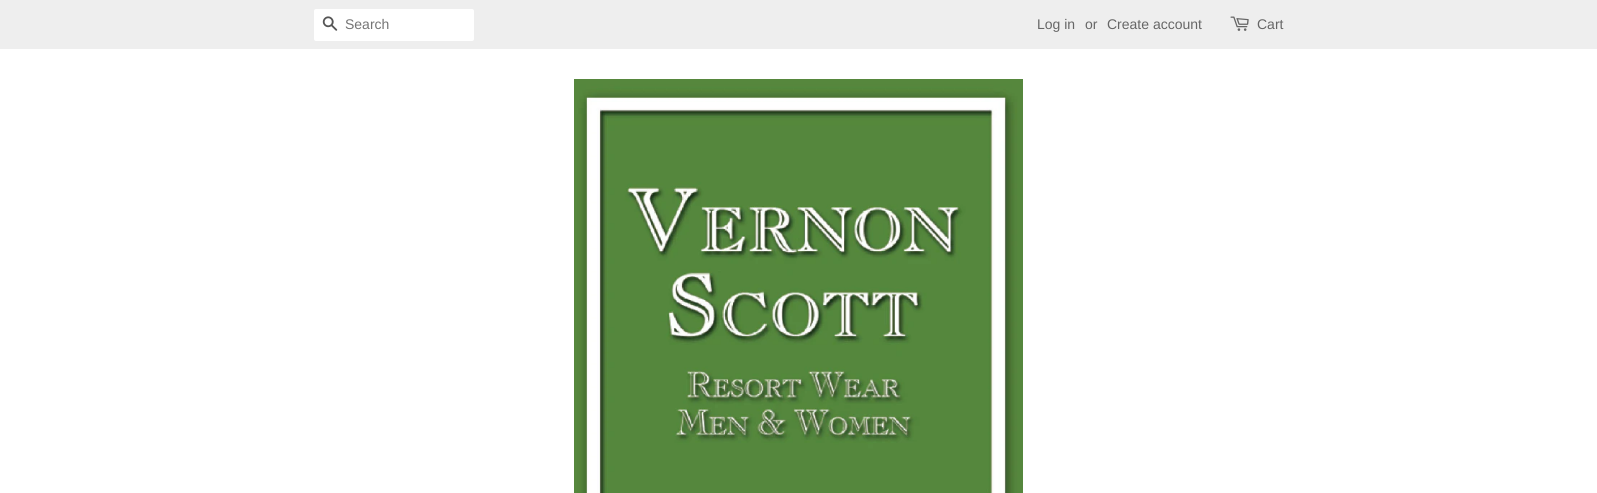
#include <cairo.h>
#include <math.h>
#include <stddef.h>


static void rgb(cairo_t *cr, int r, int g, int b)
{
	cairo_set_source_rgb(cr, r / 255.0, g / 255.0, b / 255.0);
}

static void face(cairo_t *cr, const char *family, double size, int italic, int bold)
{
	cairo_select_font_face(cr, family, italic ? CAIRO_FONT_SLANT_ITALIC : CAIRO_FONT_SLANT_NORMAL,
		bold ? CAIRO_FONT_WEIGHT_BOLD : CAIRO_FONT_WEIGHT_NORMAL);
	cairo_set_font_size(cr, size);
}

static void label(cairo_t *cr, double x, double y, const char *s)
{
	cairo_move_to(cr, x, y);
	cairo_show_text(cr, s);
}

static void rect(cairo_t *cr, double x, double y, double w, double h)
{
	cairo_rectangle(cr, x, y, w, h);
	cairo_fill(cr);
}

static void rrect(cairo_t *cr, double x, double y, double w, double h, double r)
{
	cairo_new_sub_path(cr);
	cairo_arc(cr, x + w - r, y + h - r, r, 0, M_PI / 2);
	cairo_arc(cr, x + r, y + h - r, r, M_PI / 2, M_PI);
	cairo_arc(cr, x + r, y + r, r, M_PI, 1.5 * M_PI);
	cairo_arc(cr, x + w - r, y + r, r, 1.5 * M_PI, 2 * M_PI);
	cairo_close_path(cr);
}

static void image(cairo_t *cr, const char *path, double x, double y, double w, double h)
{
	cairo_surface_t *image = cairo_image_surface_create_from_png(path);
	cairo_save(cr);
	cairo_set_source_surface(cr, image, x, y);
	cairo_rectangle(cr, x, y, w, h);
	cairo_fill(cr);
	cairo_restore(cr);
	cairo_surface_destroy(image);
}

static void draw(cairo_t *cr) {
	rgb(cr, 255, 255, 255);
	cairo_paint(cr);
	rgb(cr, 238, 238, 238);
	rect(cr, 0, 0, 1597, 49);
	rgb(cr, 255, 255, 255);
	rrect(cr, 314, 9, 160, 32, 2);
	cairo_fill(cr);
	image(cr, "image0.png", 322, 16, 16, 15);
	face(cr, "Liberation Sans", 14, 0, 0);
	rgb(cr, 117, 117, 117);
	label(cr, 345, 29, "Search");
	rgb(cr, 102, 102, 102);
	label(cr, 1037, 29, "Log in");
	label(cr, 1085, 29, "or");
	label(cr, 1107, 29, "Create account");
	image(cr, "image1.png", 1230, 16, 19, 15);
	label(cr, 1257, 29, "Cart");
	image(cr, "image2.png", 574, 79, 449, 414);
}

int main(void) {
	cairo_surface_t *surface = cairo_image_surface_create(CAIRO_FORMAT_RGB24, 1597, 493);
	cairo_t *cr = cairo_create(surface);
	cairo_font_options_t *options = cairo_font_options_create();
	cairo_font_options_set_hint_metrics(options, CAIRO_HINT_METRICS_OFF);
	cairo_font_options_set_hint_style(options, CAIRO_HINT_STYLE_NONE);
	cairo_set_font_options(cr, options);
	cairo_set_miter_limit(cr, 4);
	draw(cr);
	cairo_surface_write_to_png(surface, "render.png");
	cairo_font_options_destroy(options);
	cairo_destroy(cr);
	cairo_surface_destroy(surface);
	return 0;
}
